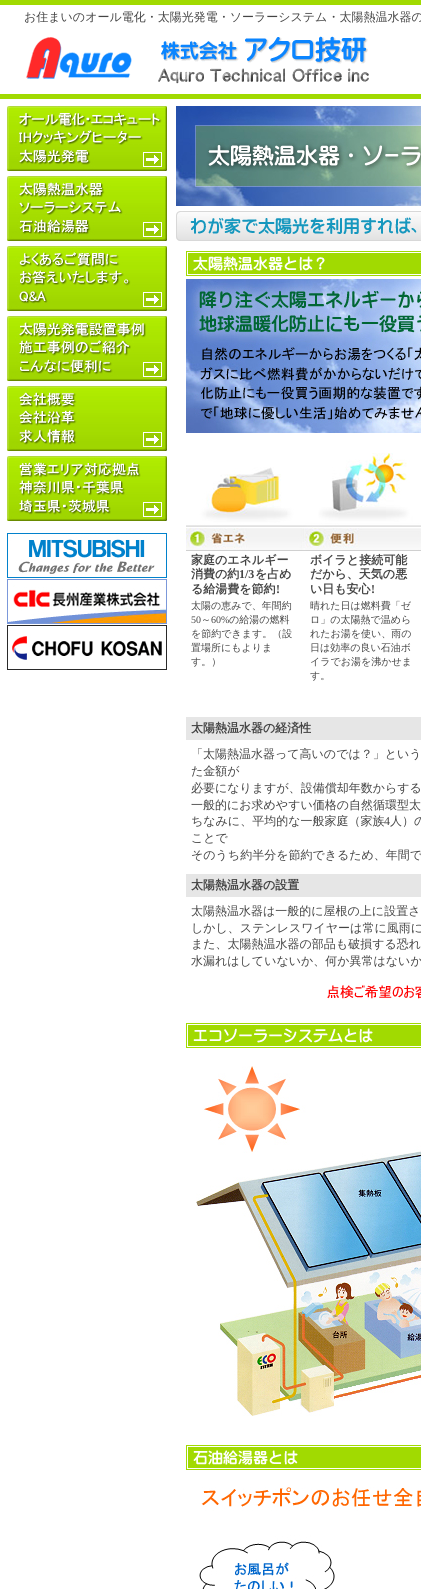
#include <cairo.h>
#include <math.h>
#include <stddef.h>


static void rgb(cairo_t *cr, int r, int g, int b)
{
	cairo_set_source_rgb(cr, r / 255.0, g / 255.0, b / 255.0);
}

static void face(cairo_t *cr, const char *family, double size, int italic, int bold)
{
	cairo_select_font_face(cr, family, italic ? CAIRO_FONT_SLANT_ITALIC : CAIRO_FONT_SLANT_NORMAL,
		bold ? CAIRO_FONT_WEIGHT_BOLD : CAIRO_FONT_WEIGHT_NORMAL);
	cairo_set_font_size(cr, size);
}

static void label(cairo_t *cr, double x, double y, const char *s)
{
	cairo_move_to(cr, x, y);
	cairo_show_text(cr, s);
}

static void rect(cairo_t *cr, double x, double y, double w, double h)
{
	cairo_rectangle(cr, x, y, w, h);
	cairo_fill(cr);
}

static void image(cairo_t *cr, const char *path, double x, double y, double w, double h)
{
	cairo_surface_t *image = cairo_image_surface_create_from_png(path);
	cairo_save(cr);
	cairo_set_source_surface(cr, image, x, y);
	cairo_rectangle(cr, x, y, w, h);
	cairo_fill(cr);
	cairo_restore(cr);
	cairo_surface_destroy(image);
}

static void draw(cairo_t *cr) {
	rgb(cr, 255, 255, 255);
	cairo_paint(cr);
	rgb(cr, 161, 218, 1);
	rect(cr, 0, 0, 421, 5);
	face(cr, "WenQuanYi Zen Hei Medium", 12, 0, 0);
	rgb(cr, 68, 68, 68);
	label(cr, 24, 21, "お住まいのオール電化・太陽光発電・ソーラーシステム・太陽熱温水器の");
	rgb(cr, 161, 218, 1);
	rect(cr, 0, 94, 421, 5);
	image(cr, "image0.png", 26, 36, 343, 48);
	image(cr, "image1.png", 7, 106, 160, 65);
	image(cr, "image2.png", 7, 176, 160, 65);
	image(cr, "image3.png", 7, 246, 160, 65);
	image(cr, "image4.png", 7, 316, 160, 65);
	image(cr, "image5.png", 7, 386, 160, 65);
	image(cr, "image6.png", 7, 456, 160, 65);
	image(cr, "image7.png", 7, 533, 160, 45);
	image(cr, "image8.png", 7, 579, 160, 45);
	image(cr, "image9.png", 7, 625, 160, 45);
	image(cr, "image10.png", 176, 106, 245, 100);
	image(cr, "image11.png", 176, 211, 245, 30);
	image(cr, "image12.png", 186, 251, 235, 25);
	image(cr, "image13.png", 186, 279, 235, 154);
	image(cr, "image14.png", 186, 453, 235, 98);
	face(cr, "WenQuanYi Zen Hei", 12, 0, 1);
	rgb(cr, 68, 68, 68);
	label(cr, 191, 564, "家庭のエネルギー");
	label(cr, 191, 578, "消費の約");
	face(cr, "Liberation Serif", 12, 0, 1);
	label(cr, 239, 578, "1/3");
	face(cr, "WenQuanYi Zen Hei", 12, 0, 1);
	label(cr, 255, 578, "を占め");
	label(cr, 191, 593, "る給湯費を節約");
	face(cr, "Liberation Serif", 12, 0, 1);
	label(cr, 276, 593, "!");
	face(cr, "WenQuanYi Zen Hei Medium", 10, 0, 0);
	label(cr, 191, 609, "太陽の恵みで、年間約");
	face(cr, "Liberation Serif", 10, 0, 0);
	label(cr, 191, 623, "50");
	face(cr, "WenQuanYi Zen Hei Medium", 10, 0, 0);
	label(cr, 201, 623, "～");
	face(cr, "Liberation Serif", 10, 0, 0);
	label(cr, 211, 623, "60%");
	face(cr, "WenQuanYi Zen Hei Medium", 10, 0, 0);
	label(cr, 229, 623, "の給湯の燃料");
	label(cr, 191, 637, "を節約できます。（設");
	label(cr, 191, 651, "置場所にもよりま");
	label(cr, 191, 665, "す。）");
	face(cr, "WenQuanYi Zen Hei", 12, 0, 1);
	label(cr, 310, 564, "ボイラと接続可能");
	label(cr, 310, 578, "だから、天気の悪");
	label(cr, 310, 593, "い日も安心");
	face(cr, "Liberation Serif", 12, 0, 1);
	label(cr, 371, 593, "!");
	face(cr, "WenQuanYi Zen Hei Medium", 10, 0, 0);
	label(cr, 310, 609, "晴れた日は燃料費「ゼ");
	label(cr, 310, 623, "ロ」の太陽熱で温めら");
	label(cr, 310, 637, "れたお湯を使い、雨の");
	label(cr, 310, 651, "日は効率の良い石油ボ");
	label(cr, 310, 665, "イラでお湯を沸かせま");
	label(cr, 310, 679, "す。");
	rgb(cr, 230, 230, 230);
	rect(cr, 186, 717, 235, 23);
	face(cr, "WenQuanYi Zen Hei", 12, 0, 1);
	rgb(cr, 68, 68, 68);
	label(cr, 191, 732, "太陽熱温水器の経済性");
	face(cr, "WenQuanYi Zen Hei Medium", 12, 0, 0);
	label(cr, 191, 758, "「太陽熱温水器って高いのでは？」という");
	label(cr, 191, 775, "た金額が");
	label(cr, 191, 792, "必要になりますが、設備償却年数からする");
	label(cr, 191, 809, "一般的にお求めやすい価格の自然循環型太");
	label(cr, 191, 825, "ちなみに、平均的な一般家庭（家族");
	face(cr, "Liberation Serif", 12, 0, 0);
	label(cr, 384, 825, "4");
	face(cr, "WenQuanYi Zen Hei Medium", 12, 0, 0);
	label(cr, 390, 825, "人）の");
	label(cr, 191, 842, "ことで");
	label(cr, 191, 859, "そのうち約半分を節約できるため、年間で");
	rgb(cr, 230, 230, 230);
	rect(cr, 186, 874, 235, 23);
	face(cr, "WenQuanYi Zen Hei", 12, 0, 1);
	rgb(cr, 68, 68, 68);
	label(cr, 191, 889, "太陽熱温水器の設置");
	face(cr, "WenQuanYi Zen Hei Medium", 12, 0, 0);
	label(cr, 191, 915, "太陽熱温水器は一般的に屋根の上に設置さ");
	label(cr, 191, 932, "しかし、ステンレスワイヤーは常に風雨に");
	label(cr, 191, 948, "また、太陽熱温水器の部品も破損する恐れ");
	label(cr, 191, 965, "水漏れはしていないか、何か異常はないか");
	image(cr, "image15.png", 327, 985, 94, 14);
	image(cr, "image16.png", 186, 1023, 235, 25);
	image(cr, "image17.png", 196, 1066, 225, 350);
	image(cr, "image18.png", 186, 1445, 235, 25);
	image(cr, "image19.png", 199, 1487, 222, 102);
}

int main(void) {
	cairo_surface_t *surface = cairo_image_surface_create(CAIRO_FORMAT_RGB24, 421, 1589);
	cairo_t *cr = cairo_create(surface);
	cairo_font_options_t *options = cairo_font_options_create();
	cairo_font_options_set_hint_metrics(options, CAIRO_HINT_METRICS_OFF);
	cairo_font_options_set_hint_style(options, CAIRO_HINT_STYLE_NONE);
	cairo_set_font_options(cr, options);
	cairo_set_miter_limit(cr, 4);
	draw(cr);
	cairo_surface_write_to_png(surface, "render.png");
	cairo_font_options_destroy(options);
	cairo_destroy(cr);
	cairo_surface_destroy(surface);
	return 0;
}
